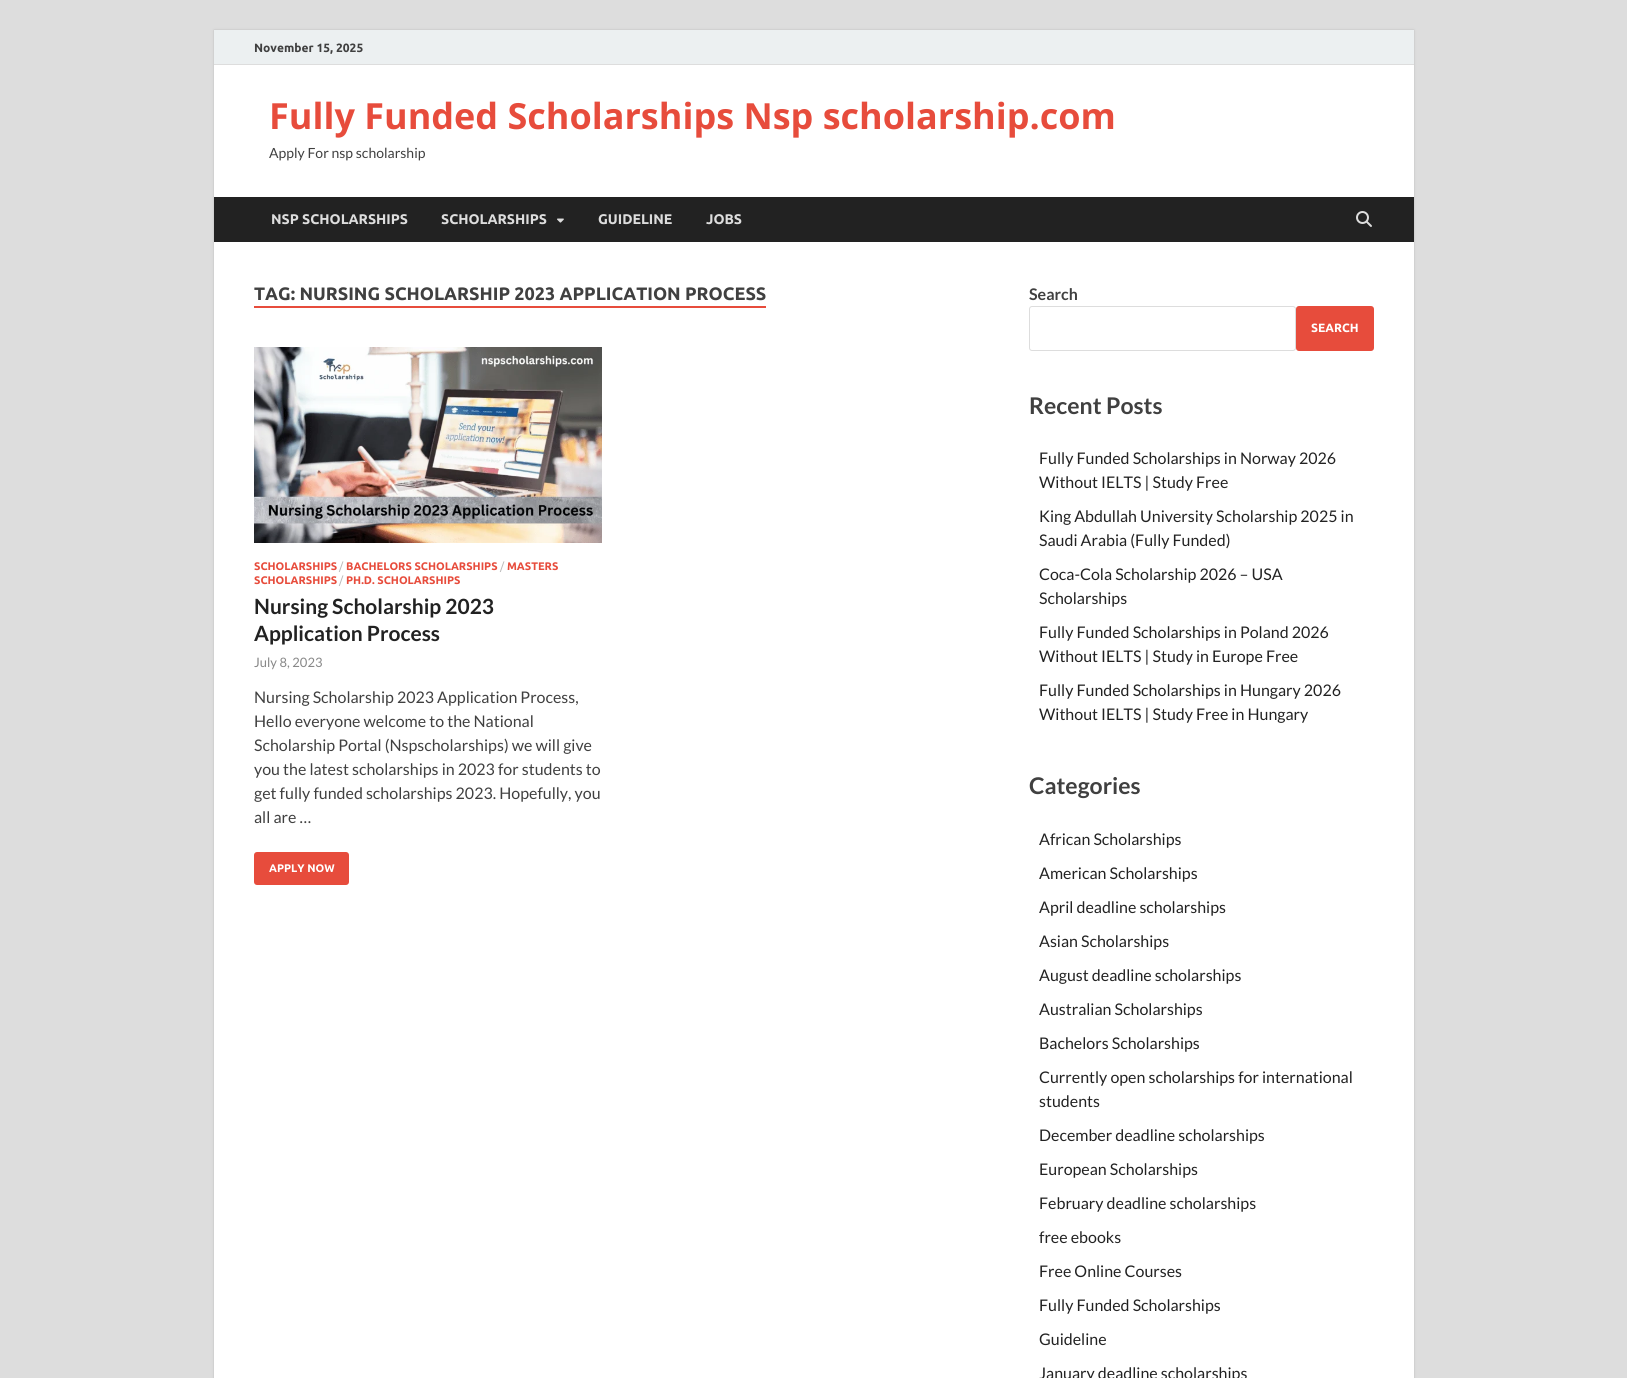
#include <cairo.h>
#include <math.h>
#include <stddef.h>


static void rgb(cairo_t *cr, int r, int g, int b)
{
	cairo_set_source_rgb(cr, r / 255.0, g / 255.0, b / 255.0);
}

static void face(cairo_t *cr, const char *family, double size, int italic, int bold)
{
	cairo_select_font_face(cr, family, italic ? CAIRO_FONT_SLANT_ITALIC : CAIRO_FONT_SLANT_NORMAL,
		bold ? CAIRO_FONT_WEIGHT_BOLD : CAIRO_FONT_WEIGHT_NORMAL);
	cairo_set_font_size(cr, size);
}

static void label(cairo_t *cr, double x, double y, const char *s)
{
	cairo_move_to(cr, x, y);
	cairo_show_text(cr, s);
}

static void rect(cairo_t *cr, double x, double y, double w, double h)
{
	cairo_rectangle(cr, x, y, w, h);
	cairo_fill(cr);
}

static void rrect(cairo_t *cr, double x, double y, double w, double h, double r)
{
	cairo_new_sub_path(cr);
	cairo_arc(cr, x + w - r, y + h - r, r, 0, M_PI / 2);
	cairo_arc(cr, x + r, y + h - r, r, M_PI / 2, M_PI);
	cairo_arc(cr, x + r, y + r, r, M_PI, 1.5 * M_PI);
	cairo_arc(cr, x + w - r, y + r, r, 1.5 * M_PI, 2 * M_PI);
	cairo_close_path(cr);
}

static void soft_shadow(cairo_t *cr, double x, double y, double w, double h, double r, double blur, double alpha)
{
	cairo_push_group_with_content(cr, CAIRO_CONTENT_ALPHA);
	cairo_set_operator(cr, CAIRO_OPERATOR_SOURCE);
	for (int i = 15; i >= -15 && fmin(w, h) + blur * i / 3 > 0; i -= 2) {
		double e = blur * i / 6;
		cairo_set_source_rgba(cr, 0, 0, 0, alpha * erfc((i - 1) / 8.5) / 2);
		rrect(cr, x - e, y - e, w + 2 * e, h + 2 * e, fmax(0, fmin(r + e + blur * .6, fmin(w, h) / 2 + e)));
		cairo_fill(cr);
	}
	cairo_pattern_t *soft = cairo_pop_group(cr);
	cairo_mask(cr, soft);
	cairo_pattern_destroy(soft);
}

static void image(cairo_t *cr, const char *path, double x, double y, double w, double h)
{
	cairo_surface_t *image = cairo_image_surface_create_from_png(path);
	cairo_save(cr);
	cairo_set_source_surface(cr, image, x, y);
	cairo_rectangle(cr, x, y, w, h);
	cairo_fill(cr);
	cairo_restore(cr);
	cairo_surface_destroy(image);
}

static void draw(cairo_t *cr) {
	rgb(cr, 221, 221, 221);
	cairo_paint(cr);
	rgb(cr, 187, 187, 187);
	soft_shadow(cr, 214, 30, 1200, 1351, 0, 1, 1);
	rgb(cr, 255, 255, 255);
	rect(cr, 214, 65, 1200, 1313);
	rgb(cr, 236, 240, 241);
	rect(cr, 214, 30, 1200, 34);
	rgb(cr, 221, 221, 221);
	rect(cr, 214, 64, 1200, 1);
	face(cr, "Ubuntu", 12, 0, 1);
	rgb(cr, 64, 64, 64);
	label(cr, 254, 52, "November 15, 2025");
	face(cr, "Open Sans", 36, 0, 1);
	rgb(cr, 231, 76, 60);
	label(cr, 269, 129, "Fully Funded Scholarships Nsp scholarship.com");
	face(cr, "Lato", 14, 0, 0);
	rgb(cr, 64, 64, 64);
	label(cr, 269, 158, "Apply For nsp scholarship");
	rgb(cr, 34, 34, 34);
	rect(cr, 214, 197, 1200, 45);
	face(cr, "Ubuntu", 14, 0, 1);
	rgb(cr, 221, 221, 221);
	label(cr, 271, 224, "NSP SCHOLARSHIPS");
	label(cr, 441, 224, "SCHOLARSHIPS");
	image(cr, "image0.png", 557, 218, 7, 5);
	label(cr, 598, 224, "GUIDELINE");
	label(cr, 706, 224, "JOBS");
	image(cr, "image1.png", 1356, 211, 16, 16);
	face(cr, "Ubuntu", 18, 0, 1);
	rgb(cr, 64, 64, 64);
	label(cr, 254, 300, "TAG: NURSING SCHOLARSHIP 2023 APPLICATION PROCESS");
	rgb(cr, 231, 76, 60);
	rect(cr, 254, 306, 512, 2);
	image(cr, "image2.png", 254, 347, 348, 196);
	face(cr, "Ubuntu", 11, 0, 1);
	label(cr, 254, 570, "SCHOLARSHIPS");
	face(cr, "Ubuntu", 11, 0, 0);
	rgb(cr, 187, 187, 187);
	label(cr, 339, 570, "/");
	face(cr, "Ubuntu", 11, 0, 1);
	rgb(cr, 231, 76, 60);
	label(cr, 346, 570, "BACHELORS SCHOLARSHIPS");
	face(cr, "Ubuntu", 11, 0, 0);
	rgb(cr, 187, 187, 187);
	label(cr, 500, 570, "/");
	face(cr, "Ubuntu", 11, 0, 1);
	rgb(cr, 231, 76, 60);
	label(cr, 507, 570, "MASTERS");
	label(cr, 254, 584, "SCHOLARSHIPS");
	face(cr, "Ubuntu", 11, 0, 0);
	rgb(cr, 187, 187, 187);
	label(cr, 339, 584, "/");
	face(cr, "Ubuntu", 11, 0, 1);
	rgb(cr, 231, 76, 60);
	label(cr, 346, 584, "PH.D. SCHOLARSHIPS");
	face(cr, "Lato", 21, 0, 1);
	rgb(cr, 34, 34, 34);
	label(cr, 254, 614, "Nursing Scholarship 2023");
	label(cr, 254, 641, "Application Process");
	face(cr, "Lato", 13, 0, 0);
	rgb(cr, 136, 136, 136);
	label(cr, 254, 667, "July 8, 2023");
	face(cr, "Lato", 16, 0, 0);
	rgb(cr, 64, 64, 64);
	label(cr, 254, 703, "Nursing Scholarship 2023 Application Process,");
	label(cr, 254, 727, "Hello everyone welcome to the National");
	label(cr, 254, 751, "Scholarship Portal (Nspscholarships) we will give");
	label(cr, 254, 775, "you the latest scholarships in 2023 for students to");
	label(cr, 254, 799, "get fully funded scholarships 2023. Hopefully, you");
	label(cr, 254, 823, "all are …");
	rgb(cr, 231, 76, 60);
	rrect(cr, 254, 852, 95, 33, 3);
	cairo_fill(cr);
	face(cr, "Ubuntu", 11, 0, 1);
	rgb(cr, 255, 255, 255);
	label(cr, 269, 872, "APPLY NOW");
	face(cr, "Lato", 16, 0, 1);
	rgb(cr, 64, 64, 64);
	label(cr, 1029, 300, "Search");
	rrect(cr, 1029.5, 306.5, 266, 44, 2.5);
	rgb(cr, 221, 221, 221);
	cairo_set_line_width(cr, 1);
	cairo_stroke(cr);
	rgb(cr, 231, 76, 60);
	rrect(cr, 1296, 306, 78, 45, 3);
	cairo_fill(cr);
	face(cr, "Ubuntu", 12, 0, 1);
	rgb(cr, 255, 255, 255);
	label(cr, 1311, 332, "SEARCH");
	face(cr, "Lato", 23, 0, 1);
	rgb(cr, 64, 64, 64);
	label(cr, 1029, 414, "Recent Posts");
	face(cr, "Lato", 16, 0, 0);
	rgb(cr, 34, 34, 34);
	label(cr, 1039, 464, "Fully Funded Scholarships in Norway 2026");
	label(cr, 1039, 488, "Without IELTS | Study Free");
	label(cr, 1039, 522, "King Abdullah University Scholarship 2025 in");
	label(cr, 1039, 546, "Saudi Arabia (Fully Funded)");
	label(cr, 1039, 580, "Coca-Cola Scholarship 2026 – USA");
	label(cr, 1039, 604, "Scholarships");
	label(cr, 1039, 638, "Fully Funded Scholarships in Poland 2026");
	label(cr, 1039, 662, "Without IELTS | Study in Europe Free");
	label(cr, 1039, 696, "Fully Funded Scholarships in Hungary 2026");
	label(cr, 1039, 720, "Without IELTS | Study Free in Hungary");
	face(cr, "Lato", 23, 0, 1);
	rgb(cr, 64, 64, 64);
	label(cr, 1029, 794, "Categories");
	face(cr, "Lato", 16, 0, 0);
	rgb(cr, 34, 34, 34);
	label(cr, 1039, 845, "African Scholarships");
	label(cr, 1039, 879, "American Scholarships");
	label(cr, 1039, 913, "April deadline scholarships");
	label(cr, 1039, 947, "Asian Scholarships");
	label(cr, 1039, 981, "August deadline scholarships");
	label(cr, 1039, 1015, "Australian Scholarships");
	label(cr, 1039, 1049, "Bachelors Scholarships");
	label(cr, 1039, 1083, "Currently open scholarships for international");
	label(cr, 1039, 1107, "students");
	label(cr, 1039, 1141, "December deadline scholarships");
	label(cr, 1039, 1175, "European Scholarships");
	label(cr, 1039, 1209, "February deadline scholarships");
	label(cr, 1039, 1243, "free ebooks");
	label(cr, 1039, 1277, "Free Online Courses");
	label(cr, 1039, 1311, "Fully Funded Scholarships");
	label(cr, 1039, 1345, "Guideline");
	label(cr, 1039, 1379, "January deadline scholarships");
}

int main(void) {
	cairo_surface_t *surface = cairo_image_surface_create(CAIRO_FORMAT_RGB24, 1627, 1378);
	cairo_t *cr = cairo_create(surface);
	cairo_font_options_t *options = cairo_font_options_create();
	cairo_font_options_set_hint_metrics(options, CAIRO_HINT_METRICS_OFF);
	cairo_font_options_set_hint_style(options, CAIRO_HINT_STYLE_NONE);
	cairo_set_font_options(cr, options);
	cairo_set_miter_limit(cr, 4);
	draw(cr);
	cairo_surface_write_to_png(surface, "render.png");
	cairo_font_options_destroy(options);
	cairo_destroy(cr);
	cairo_surface_destroy(surface);
	return 0;
}
